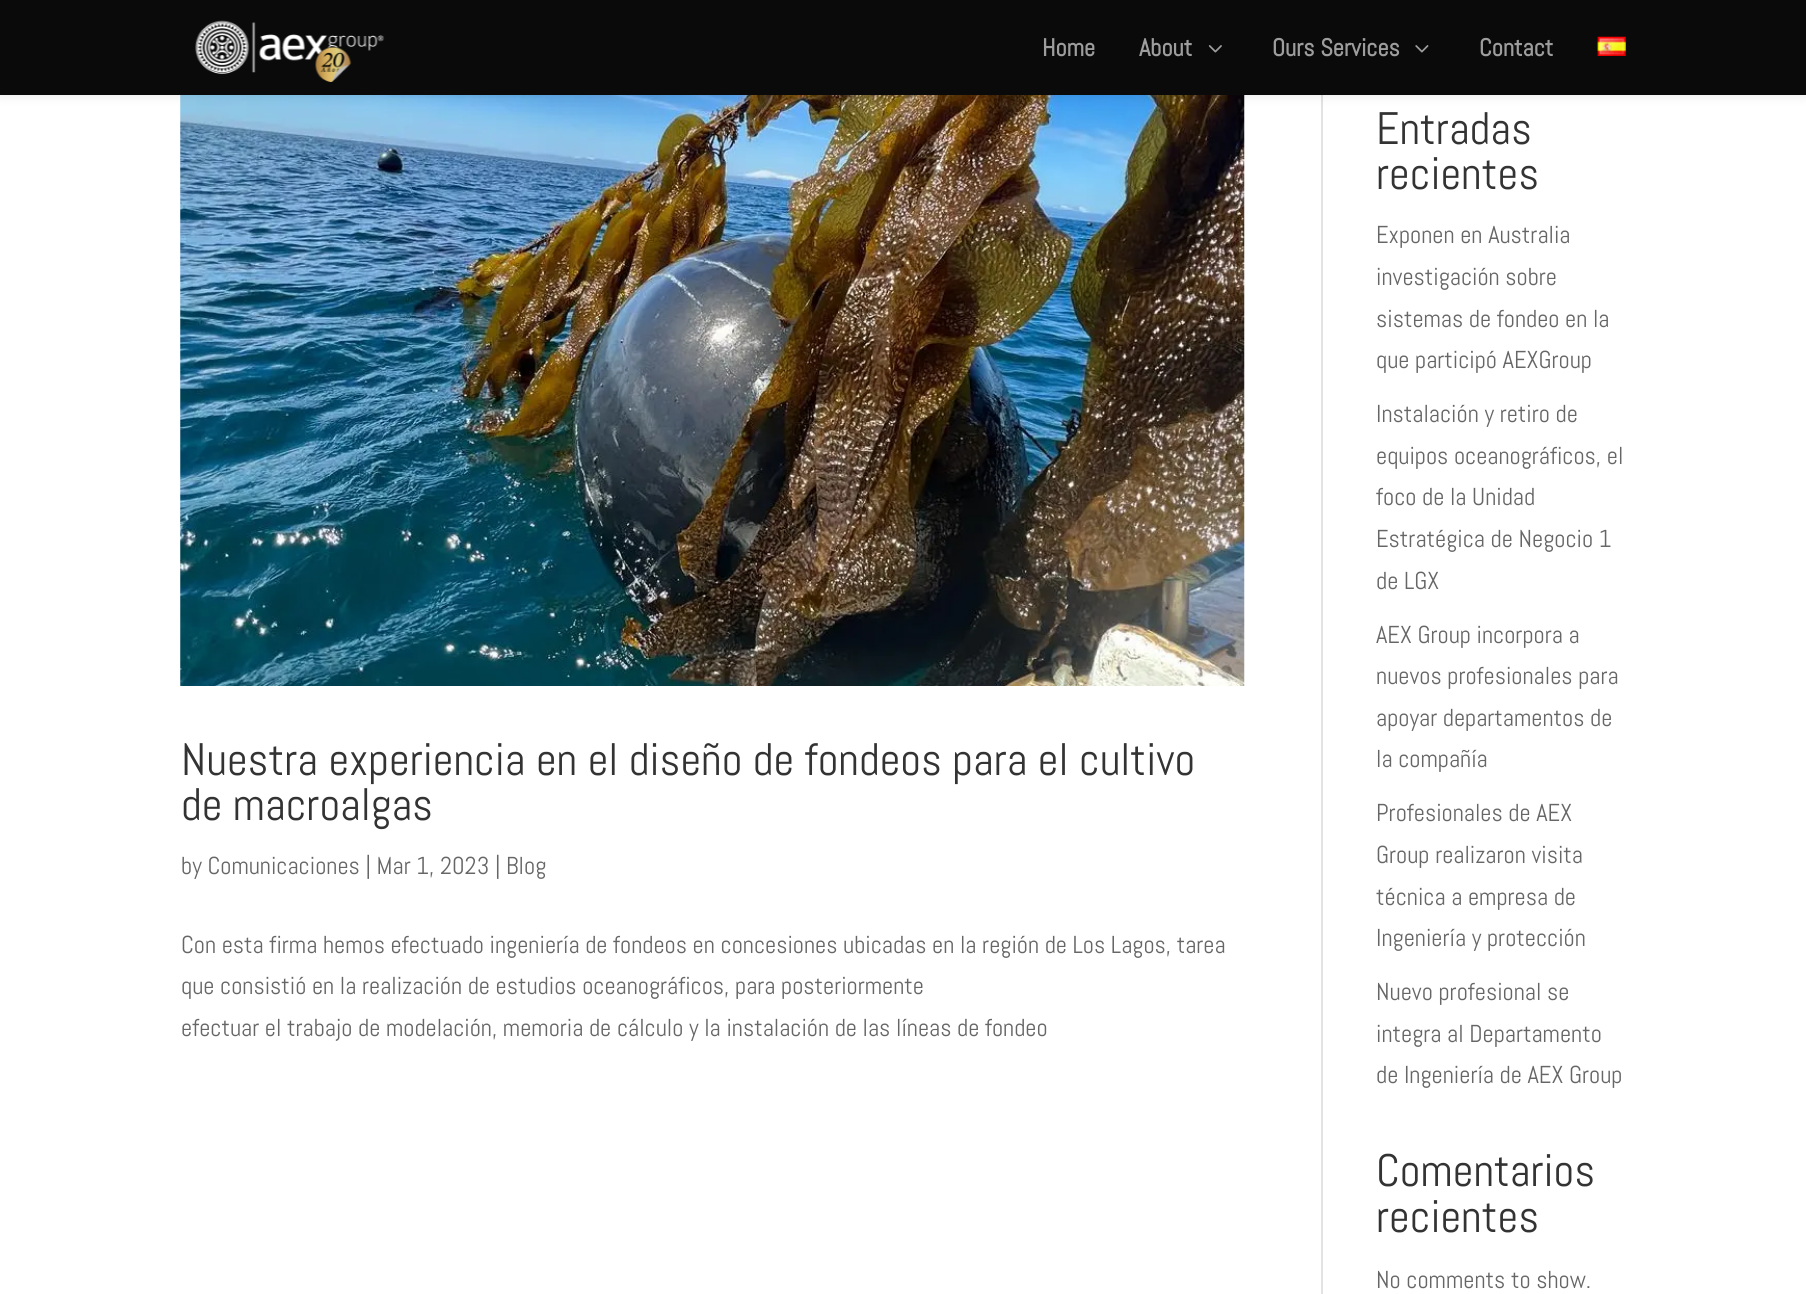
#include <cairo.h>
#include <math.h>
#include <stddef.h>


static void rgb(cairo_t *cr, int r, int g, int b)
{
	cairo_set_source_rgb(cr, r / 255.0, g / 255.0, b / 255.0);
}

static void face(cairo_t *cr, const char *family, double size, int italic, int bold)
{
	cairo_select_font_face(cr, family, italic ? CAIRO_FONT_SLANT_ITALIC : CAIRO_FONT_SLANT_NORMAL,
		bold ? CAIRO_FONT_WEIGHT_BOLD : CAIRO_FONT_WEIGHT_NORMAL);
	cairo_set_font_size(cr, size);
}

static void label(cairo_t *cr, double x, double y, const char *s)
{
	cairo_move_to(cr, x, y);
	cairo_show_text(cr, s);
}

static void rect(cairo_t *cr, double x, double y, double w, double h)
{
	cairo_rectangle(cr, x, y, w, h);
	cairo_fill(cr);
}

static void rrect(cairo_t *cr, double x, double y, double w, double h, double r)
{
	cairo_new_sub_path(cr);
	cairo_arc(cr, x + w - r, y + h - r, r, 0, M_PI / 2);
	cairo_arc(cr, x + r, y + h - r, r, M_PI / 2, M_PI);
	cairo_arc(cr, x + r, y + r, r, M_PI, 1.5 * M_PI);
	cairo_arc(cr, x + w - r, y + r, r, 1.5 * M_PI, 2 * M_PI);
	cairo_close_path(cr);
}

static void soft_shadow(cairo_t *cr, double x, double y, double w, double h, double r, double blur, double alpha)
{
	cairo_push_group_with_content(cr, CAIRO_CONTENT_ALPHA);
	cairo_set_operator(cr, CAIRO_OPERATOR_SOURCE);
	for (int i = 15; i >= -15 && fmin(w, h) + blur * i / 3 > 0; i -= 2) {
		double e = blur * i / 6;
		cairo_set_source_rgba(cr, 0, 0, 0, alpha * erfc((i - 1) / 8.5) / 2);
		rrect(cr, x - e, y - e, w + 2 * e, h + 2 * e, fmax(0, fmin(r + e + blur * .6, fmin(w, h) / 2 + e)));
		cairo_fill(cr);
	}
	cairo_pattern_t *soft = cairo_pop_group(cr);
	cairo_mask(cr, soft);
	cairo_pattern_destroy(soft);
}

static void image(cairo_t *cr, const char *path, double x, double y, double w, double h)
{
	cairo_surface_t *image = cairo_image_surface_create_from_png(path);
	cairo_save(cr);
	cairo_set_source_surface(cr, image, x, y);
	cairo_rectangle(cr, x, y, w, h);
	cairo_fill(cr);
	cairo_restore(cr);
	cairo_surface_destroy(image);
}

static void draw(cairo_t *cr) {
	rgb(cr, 255, 255, 255);
	cairo_paint(cr);
	rgb(cr, 226, 226, 226);
	rect(cr, 1321, 95, 2, 1199);
	image(cr, "image4.png", 180, 95, 1065, 591);
	rgb(cr, 0, 0, 0);
	soft_shadow(cr, 0, 0, 1806, 95, 0, 6, 0.1);
	rgb(cr, 10, 10, 10);
	rect(cr, 0, 0, 1806, 95);
	image(cr, "image0.png", 195, 20, 190, 62);
	face(cr, "Abel", 24.5, 0, 1);
	rgb(cr, 157, 157, 157);
	label(cr, 1042, 56, "Home");
	label(cr, 1139, 56, "About");
	image(cr, "image1.png", 1208, 45, 14, 8);
	label(cr, 1272, 56, "Ours Services");
	image(cr, "image2.png", 1415, 45, 14, 8);
	label(cr, 1479, 56, "Contact");
	image(cr, "image3.png", 1597, 36, 29, 20);
	face(cr, "Abel", 45.5, 0, 0);
	rgb(cr, 51, 51, 51);
	label(cr, 181, 775, "Nuestra experiencia en el diseño de fondeos para el cultivo");
	label(cr, 181, 820, "de macroalgas");
	face(cr, "Abel", 24.5, 0, 0);
	rgb(cr, 102, 102, 102);
	label(cr, 181, 874, "by Comunicaciones | Mar 1, 2023 | Blog");
	label(cr, 181, 953, "Con esta firma hemos efectuado ingeniería de fondeos en concesiones ubicadas en la región de Los Lagos, tarea");
	label(cr, 181, 994, "que consistió en la realización de estudios oceanográficos, para posteriormente");
	label(cr, 181, 1036, "efectuar el trabajo de modelación, memoria de cálculo y la instalación de las líneas de fondeo");
	face(cr, "Abel", 45.5, 0, 0);
	rgb(cr, 51, 51, 51);
	label(cr, 1376, 144, "Entradas");
	label(cr, 1376, 189, "recientes");
	face(cr, "Abel", 24.5, 0, 0);
	rgb(cr, 102, 102, 102);
	label(cr, 1376, 243, "Exponen en Australia");
	label(cr, 1376, 285, "investigación sobre");
	label(cr, 1376, 327, "sistemas de fondeo en la");
	label(cr, 1376, 368, "que participó AEXGroup");
	label(cr, 1376, 422, "Instalación y retiro de");
	label(cr, 1376, 464, "equipos oceanográficos, el");
	label(cr, 1376, 505, "foco de la Unidad");
	label(cr, 1376, 547, "Estratégica de Negocio 1");
	label(cr, 1376, 589, "de LGX");
	label(cr, 1376, 643, "AEX Group incorpora a");
	label(cr, 1376, 684, "nuevos profesionales para");
	label(cr, 1376, 726, "apoyar departamentos de");
	label(cr, 1376, 767, "la compañía");
	label(cr, 1376, 821, "Profesionales de AEX");
	label(cr, 1376, 863, "Group realizaron visita");
	label(cr, 1376, 905, "técnica a empresa de");
	label(cr, 1376, 946, "Ingeniería y protección");
	label(cr, 1376, 1000, "Nuevo profesional se");
	label(cr, 1376, 1042, "integra al Departamento");
	label(cr, 1376, 1083, "de Ingeniería de AEX Group");
	face(cr, "Abel", 45.5, 0, 0);
	rgb(cr, 51, 51, 51);
	label(cr, 1376, 1186, "Comentarios");
	label(cr, 1376, 1232, "recientes");
	face(cr, "Abel", 24.5, 0, 0);
	rgb(cr, 102, 102, 102);
	label(cr, 1376, 1288, "No comments to show.");
}

int main(void) {
	cairo_surface_t *surface = cairo_image_surface_create(CAIRO_FORMAT_RGB24, 1806, 1294);
	cairo_t *cr = cairo_create(surface);
	cairo_font_options_t *options = cairo_font_options_create();
	cairo_font_options_set_hint_metrics(options, CAIRO_HINT_METRICS_OFF);
	cairo_font_options_set_hint_style(options, CAIRO_HINT_STYLE_NONE);
	cairo_set_font_options(cr, options);
	cairo_set_miter_limit(cr, 4);
	draw(cr);
	cairo_surface_write_to_png(surface, "render.png");
	cairo_font_options_destroy(options);
	cairo_destroy(cr);
	cairo_surface_destroy(surface);
	return 0;
}
